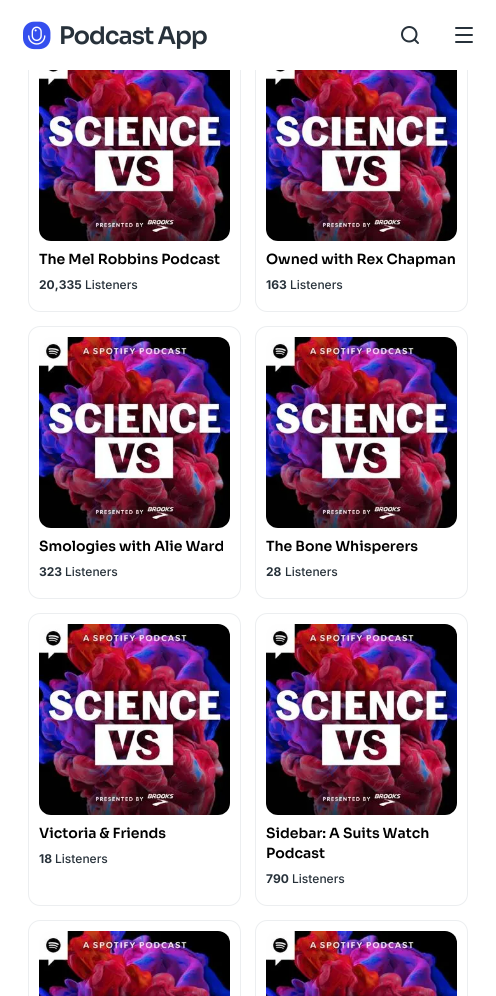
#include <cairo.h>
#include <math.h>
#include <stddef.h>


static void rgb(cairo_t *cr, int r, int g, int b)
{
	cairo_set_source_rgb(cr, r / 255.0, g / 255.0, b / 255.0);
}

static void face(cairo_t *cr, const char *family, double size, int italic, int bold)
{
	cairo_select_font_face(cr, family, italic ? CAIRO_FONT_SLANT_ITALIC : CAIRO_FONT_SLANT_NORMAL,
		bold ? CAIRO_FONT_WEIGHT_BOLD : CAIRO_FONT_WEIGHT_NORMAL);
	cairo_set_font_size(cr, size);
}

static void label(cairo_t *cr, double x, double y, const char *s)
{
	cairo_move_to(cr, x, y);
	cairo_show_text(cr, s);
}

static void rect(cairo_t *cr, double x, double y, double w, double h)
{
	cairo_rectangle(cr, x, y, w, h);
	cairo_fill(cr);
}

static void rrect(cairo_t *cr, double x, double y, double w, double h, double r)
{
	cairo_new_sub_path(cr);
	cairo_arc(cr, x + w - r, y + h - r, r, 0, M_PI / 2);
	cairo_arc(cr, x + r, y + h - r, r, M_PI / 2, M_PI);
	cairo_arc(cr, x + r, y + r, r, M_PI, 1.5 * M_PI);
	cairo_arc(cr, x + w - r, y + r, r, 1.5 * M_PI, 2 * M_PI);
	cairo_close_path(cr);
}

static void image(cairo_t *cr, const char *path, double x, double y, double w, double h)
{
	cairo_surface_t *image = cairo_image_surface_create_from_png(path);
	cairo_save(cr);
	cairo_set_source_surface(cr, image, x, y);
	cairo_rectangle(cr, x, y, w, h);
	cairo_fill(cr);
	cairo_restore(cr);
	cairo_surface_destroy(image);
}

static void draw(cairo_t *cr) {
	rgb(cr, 255, 255, 255);
	cairo_paint(cr);
	rrect(cr, 28.5, 39.5, 212, 272, 11.5);
	rgb(cr, 236, 238, 240);
	cairo_set_line_width(cr, 1);
	cairo_stroke(cr);
	rrect(cr, 255.5, 39.5, 212, 272, 11.5);
	cairo_stroke(cr);
	rgb(cr, 255, 255, 255);
	rect(cr, 28, 39, 440, 31);
	image(cr, "image0.png", 23, 21, 184, 29);
	image(cr, "image1.png", 401, 26, 18, 18);
	image(cr, "image2.png", 455, 27, 18, 16);
	image(cr, "image3.png", 39, 70, 191, 171);
	face(cr, "Sora SemiBold", 14, 0, 0);
	rgb(cr, 0, 0, 0);
	label(cr, 39, 264, "The Mel Robbins Podcast");
	face(cr, "Inter", 12, 0, 1);
	rgb(cr, 39, 49, 58);
	label(cr, 39, 289, "20,335");
	face(cr, "Inter Medium", 12, 0, 0);
	label(cr, 85, 289, "Listeners");
	image(cr, "image4.png", 266, 70, 191, 171);
	face(cr, "Sora SemiBold", 14, 0, 0);
	rgb(cr, 0, 0, 0);
	label(cr, 266, 264, "Owned with Rex Chapman");
	face(cr, "Inter", 12, 0, 1);
	rgb(cr, 39, 49, 58);
	label(cr, 266, 289, "163");
	face(cr, "Inter Medium", 12, 0, 0);
	label(cr, 290, 289, "Listeners");
	rrect(cr, 28.5, 326.5, 212, 272, 11.5);
	rgb(cr, 236, 238, 240);
	cairo_stroke(cr);
	image(cr, "image5.png", 39, 337, 191, 191);
	face(cr, "Sora SemiBold", 14, 0, 0);
	rgb(cr, 0, 0, 0);
	label(cr, 39, 551, "Smologies with Alie Ward");
	face(cr, "Inter", 12, 0, 1);
	rgb(cr, 39, 49, 58);
	label(cr, 39, 576, "323");
	face(cr, "Inter Medium", 12, 0, 0);
	label(cr, 65, 576, "Listeners");
	rrect(cr, 255.5, 326.5, 212, 272, 11.5);
	rgb(cr, 236, 238, 240);
	cairo_stroke(cr);
	image(cr, "image6.png", 266, 337, 191, 191);
	face(cr, "Sora SemiBold", 14, 0, 0);
	rgb(cr, 0, 0, 0);
	label(cr, 266, 551, "The Bone Whisperers");
	face(cr, "Inter", 12, 0, 1);
	rgb(cr, 39, 49, 58);
	label(cr, 266, 576, "28");
	face(cr, "Inter Medium", 12, 0, 0);
	label(cr, 285, 576, "Listeners");
	rrect(cr, 28.5, 613.5, 212, 292, 11.5);
	rgb(cr, 236, 238, 240);
	cairo_stroke(cr);
	image(cr, "image5.png", 39, 624, 191, 191);
	face(cr, "Sora SemiBold", 14, 0, 0);
	rgb(cr, 0, 0, 0);
	label(cr, 39, 838, "Victoria & Friends");
	face(cr, "Inter", 12, 0, 1);
	rgb(cr, 39, 49, 58);
	label(cr, 39, 863, "18");
	face(cr, "Inter Medium", 12, 0, 0);
	label(cr, 55, 863, "Listeners");
	rrect(cr, 255.5, 613.5, 212, 292, 11.5);
	rgb(cr, 236, 238, 240);
	cairo_stroke(cr);
	image(cr, "image6.png", 266, 624, 191, 191);
	face(cr, "Sora SemiBold", 14, 0, 0);
	rgb(cr, 0, 0, 0);
	label(cr, 266, 838, "Sidebar: A Suits Watch");
	label(cr, 266, 858, "Podcast");
	face(cr, "Inter", 12, 0, 1);
	rgb(cr, 39, 49, 58);
	label(cr, 266, 883, "790");
	face(cr, "Inter Medium", 12, 0, 0);
	label(cr, 292, 883, "Listeners");
	rrect(cr, 28.5, 920.5, 212, 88, 11.5);
	rgb(cr, 236, 238, 240);
	cairo_stroke(cr);
	image(cr, "image7.png", 39, 931, 191, 65);
	rrect(cr, 255.5, 920.5, 212, 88, 11.5);
	cairo_stroke(cr);
	image(cr, "image8.png", 266, 931, 191, 65);
}

int main(void) {
	cairo_surface_t *surface = cairo_image_surface_create(CAIRO_FORMAT_RGB24, 496, 996);
	cairo_t *cr = cairo_create(surface);
	cairo_font_options_t *options = cairo_font_options_create();
	cairo_font_options_set_hint_metrics(options, CAIRO_HINT_METRICS_OFF);
	cairo_font_options_set_hint_style(options, CAIRO_HINT_STYLE_NONE);
	cairo_set_font_options(cr, options);
	cairo_set_miter_limit(cr, 4);
	draw(cr);
	cairo_surface_write_to_png(surface, "render.png");
	cairo_font_options_destroy(options);
	cairo_destroy(cr);
	cairo_surface_destroy(surface);
	return 0;
}
